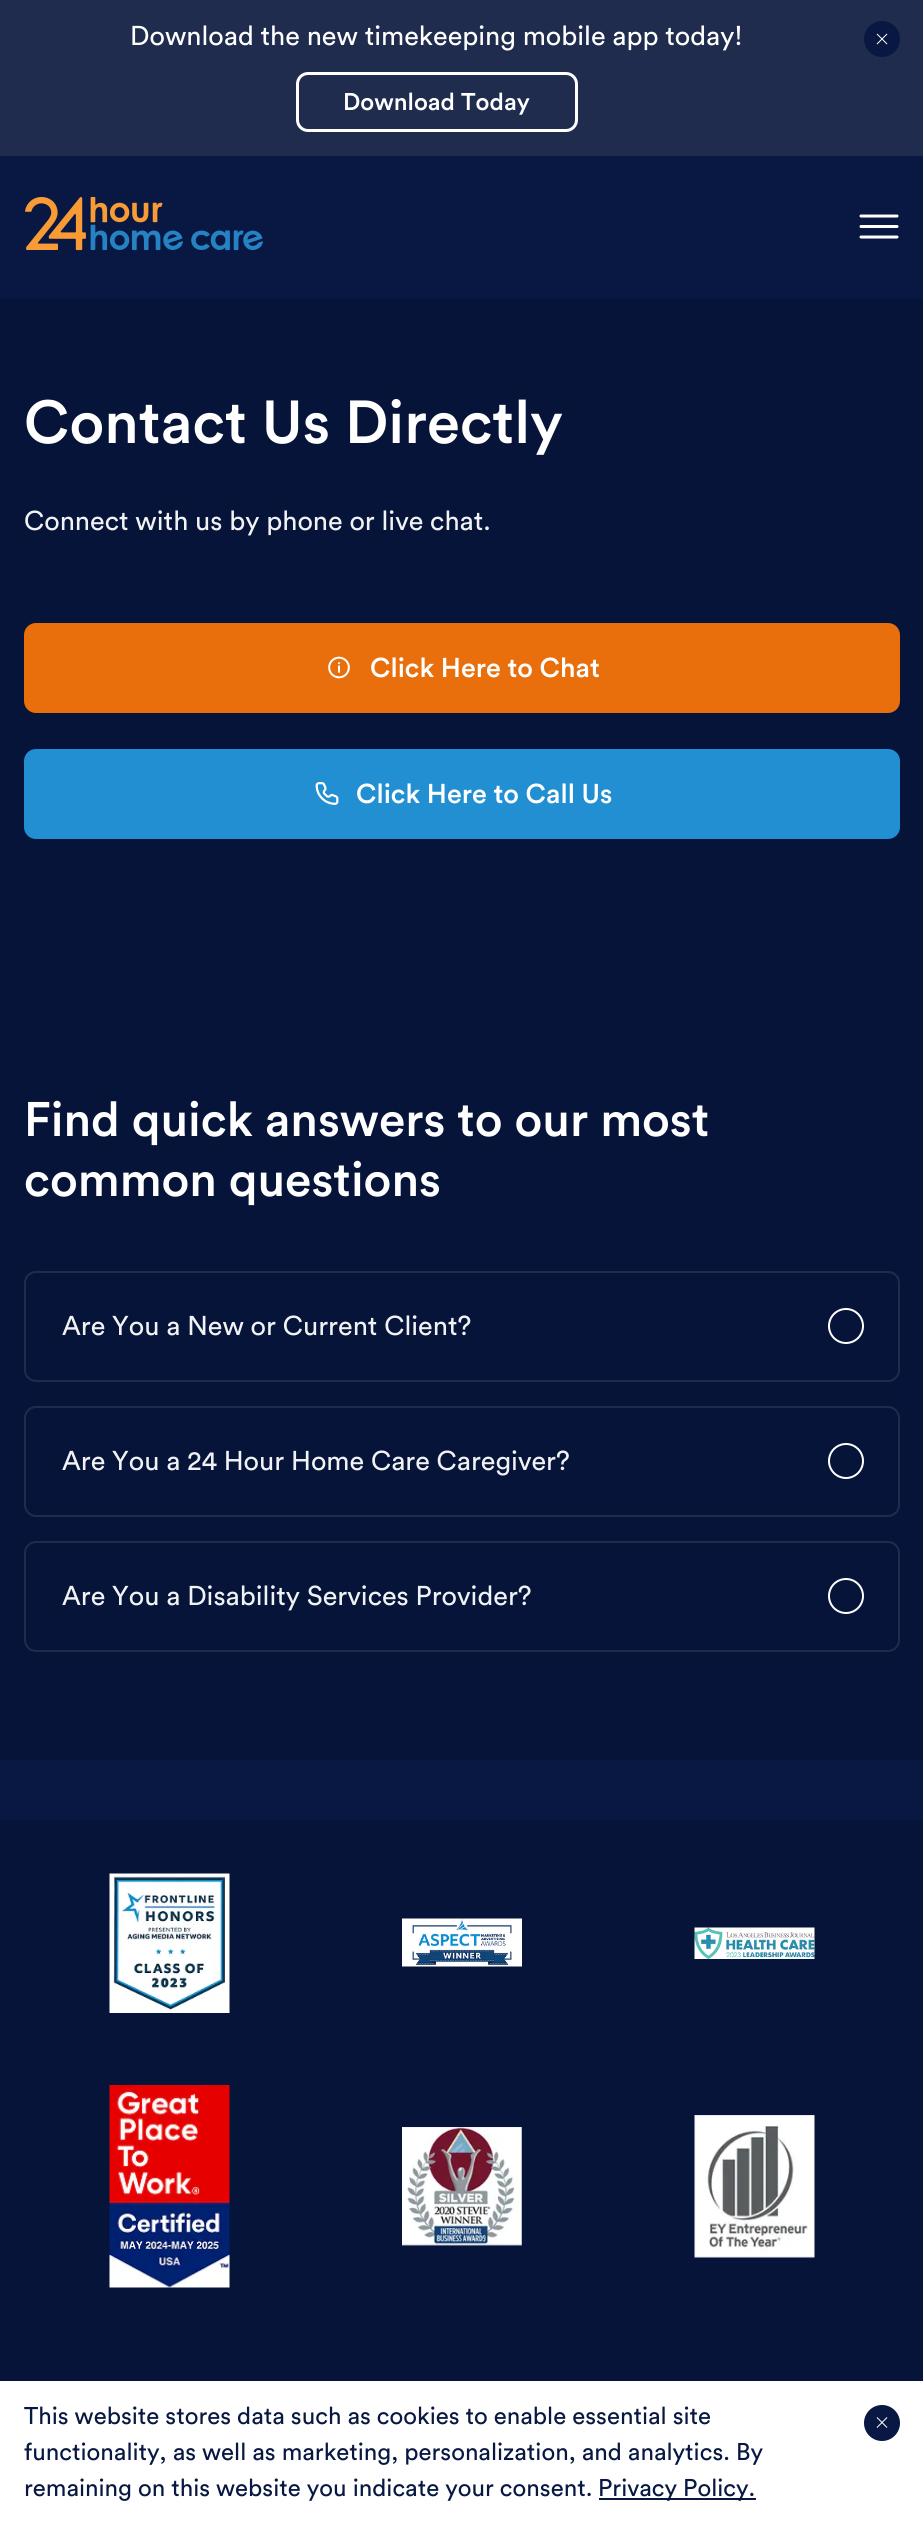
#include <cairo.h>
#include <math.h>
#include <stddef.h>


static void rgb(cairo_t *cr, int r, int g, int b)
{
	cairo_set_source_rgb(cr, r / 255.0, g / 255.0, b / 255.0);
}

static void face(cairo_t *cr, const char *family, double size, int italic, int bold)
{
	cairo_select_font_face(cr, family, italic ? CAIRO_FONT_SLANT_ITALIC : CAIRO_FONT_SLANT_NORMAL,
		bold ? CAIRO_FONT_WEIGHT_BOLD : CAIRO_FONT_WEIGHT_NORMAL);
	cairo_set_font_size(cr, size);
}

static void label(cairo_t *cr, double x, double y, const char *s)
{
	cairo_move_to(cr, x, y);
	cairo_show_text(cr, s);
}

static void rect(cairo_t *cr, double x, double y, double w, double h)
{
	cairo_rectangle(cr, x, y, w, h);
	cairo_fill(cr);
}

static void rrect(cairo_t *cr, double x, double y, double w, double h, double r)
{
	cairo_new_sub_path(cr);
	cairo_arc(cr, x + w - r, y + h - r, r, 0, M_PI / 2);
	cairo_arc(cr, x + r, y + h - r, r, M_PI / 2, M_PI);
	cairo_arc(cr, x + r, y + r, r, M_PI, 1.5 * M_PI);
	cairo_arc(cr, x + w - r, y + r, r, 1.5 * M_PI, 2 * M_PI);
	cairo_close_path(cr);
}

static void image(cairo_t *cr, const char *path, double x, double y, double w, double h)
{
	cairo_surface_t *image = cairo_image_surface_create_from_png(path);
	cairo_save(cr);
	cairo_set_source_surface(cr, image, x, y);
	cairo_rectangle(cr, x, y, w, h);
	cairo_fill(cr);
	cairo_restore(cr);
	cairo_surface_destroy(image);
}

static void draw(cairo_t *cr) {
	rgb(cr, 8, 24, 66);
	cairo_paint(cr);
	rgb(cr, 31, 44, 77);
	rect(cr, 0, 0, 923, 156);
	face(cr, "Circular", 27, 0, 0);
	rgb(cr, 255, 255, 255);
	label(cr, 130, 45, "Download the new timekeeping mobile app today!");
	rgb(cr, 8, 24, 66);
	cairo_new_path(cr);
	cairo_arc(cr, 882, 39, 18, 0, 2 * M_PI);
	cairo_fill(cr);
	image(cr, "image0.png", 876, 33, 12, 12);
	rrect(cr, 297.5, 73.5, 279, 57, 10.5);
	rgb(cr, 255, 255, 255);
	cairo_set_line_width(cr, 3);
	cairo_stroke(cr);
	face(cr, "Circular Medium", 24, 0, 0);
	label(cr, 343, 110, "Download Today");
	image(cr, "image1.png", 25, 197, 238, 54);
	cairo_new_path(cr);
	cairo_move_to(cr, 861, 237);
	cairo_line_to(cr, 897, 237);
	cairo_move_to(cr, 861, 226.5);
	cairo_line_to(cr, 897, 226.5);
	cairo_move_to(cr, 861, 216);
	cairo_line_to(cr, 897, 216);
	cairo_set_line_cap(cr, CAIRO_LINE_CAP_ROUND);
	cairo_set_line_join(cr, CAIRO_LINE_JOIN_ROUND);
	cairo_stroke(cr);
	rgb(cr, 6, 20, 57);
	rect(cr, 0, 299, 923, 1461);
	face(cr, "Circular Medium", 60, 0, 0);
	rgb(cr, 255, 255, 255);
	label(cr, 24, 443, "Contact Us Directly");
	face(cr, "Circular", 27, 0, 0);
	rgb(cr, 241, 242, 244);
	label(cr, 24, 530, "Connect with us by phone or live chat.");
	rgb(cr, 233, 111, 12);
	rrect(cr, 25.5, 624.5, 873, 87, 10.5);
	cairo_fill_preserve(cr);
	cairo_set_line_cap(cr, CAIRO_LINE_CAP_BUTT);
	cairo_set_line_join(cr, CAIRO_LINE_JOIN_MITER);
	cairo_stroke(cr);
	image(cr, "image2.png", 328, 656, 22, 23);
	face(cr, "Circular Medium", 27, 0, 0);
	rgb(cr, 255, 255, 255);
	label(cr, 370, 677, "Click Here to Chat");
	rgb(cr, 34, 143, 211);
	rrect(cr, 25.5, 750.5, 873, 87, 10.5);
	cairo_fill_preserve(cr);
	cairo_stroke(cr);
	image(cr, "image3.png", 315, 782, 24, 23);
	rgb(cr, 255, 255, 255);
	label(cr, 356, 803, "Click Here to Call Us");
	face(cr, "Circular Medium", 48, 0, 0);
	label(cr, 24, 1136, "Find quick answers to our most");
	label(cr, 24, 1196, "common questions");
	rrect(cr, 25, 1272, 874, 109, 11);
	rgb(cr, 31, 44, 77);
	cairo_set_line_width(cr, 2);
	cairo_stroke(cr);
	face(cr, "Circular", 27, 0, 0);
	rgb(cr, 241, 242, 244);
	label(cr, 62, 1335, "Are You a New or Current Client?");
	cairo_new_path(cr);
	cairo_arc(cr, 846, 1326, 17, 0, 2 * M_PI);
	rgb(cr, 255, 255, 255);
	cairo_stroke(cr);
	rrect(cr, 25, 1407, 874, 109, 11);
	rgb(cr, 31, 44, 77);
	cairo_stroke(cr);
	rgb(cr, 241, 242, 244);
	label(cr, 62, 1470, "Are You a 24 Hour Home Care Caregiver?");
	cairo_new_path(cr);
	cairo_arc(cr, 846, 1461, 17, 0, 2 * M_PI);
	rgb(cr, 255, 255, 255);
	cairo_stroke(cr);
	rrect(cr, 25, 1542, 874, 109, 11);
	rgb(cr, 31, 44, 77);
	cairo_stroke(cr);
	rgb(cr, 241, 242, 244);
	label(cr, 62, 1605, "Are You a Disability Services Provider?");
	cairo_new_path(cr);
	cairo_arc(cr, 846, 1596, 17, 0, 2 * M_PI);
	rgb(cr, 255, 255, 255);
	cairo_stroke(cr);
	rect(cr, 0, 2381, 923, 149);
	face(cr, "Circular", 24, 0, 0);
	rgb(cr, 8, 24, 66);
	label(cr, 24, 2424, "This website stores data such as cookies to enable essential site");
	label(cr, 24, 2460, "functionality, as well as marketing, personalization, and analytics. By");
	label(cr, 24, 2496, "remaining on this website you indicate your consent.");
	rect(cr, 599, 2498, 157, 2);
	label(cr, 598, 2496, "Privacy Policy.");
	cairo_new_path(cr);
	cairo_arc(cr, 882, 2423, 18, 0, 2 * M_PI);
	cairo_fill(cr);
	image(cr, "image4.png", 876, 2417, 12, 11);
	rgb(cr, 6, 20, 57);
	rect(cr, 0, 1820, 923, 561);
	image(cr, "image5.png", 109, 1873, 121, 140);
	image(cr, "image6.png", 402, 1918, 120, 49);
	image(cr, "image7.png", 694, 1927, 121, 32);
	image(cr, "image8.png", 109, 2085, 121, 203);
	image(cr, "image9.png", 402, 2127, 120, 119);
	image(cr, "image10.png", 694, 2115, 121, 143);
}

int main(void) {
	cairo_surface_t *surface = cairo_image_surface_create(CAIRO_FORMAT_RGB24, 923, 2530);
	cairo_t *cr = cairo_create(surface);
	cairo_font_options_t *options = cairo_font_options_create();
	cairo_font_options_set_hint_metrics(options, CAIRO_HINT_METRICS_OFF);
	cairo_font_options_set_hint_style(options, CAIRO_HINT_STYLE_NONE);
	cairo_set_font_options(cr, options);
	cairo_set_miter_limit(cr, 4);
	draw(cr);
	cairo_surface_write_to_png(surface, "render.png");
	cairo_font_options_destroy(options);
	cairo_destroy(cr);
	cairo_surface_destroy(surface);
	return 0;
}
